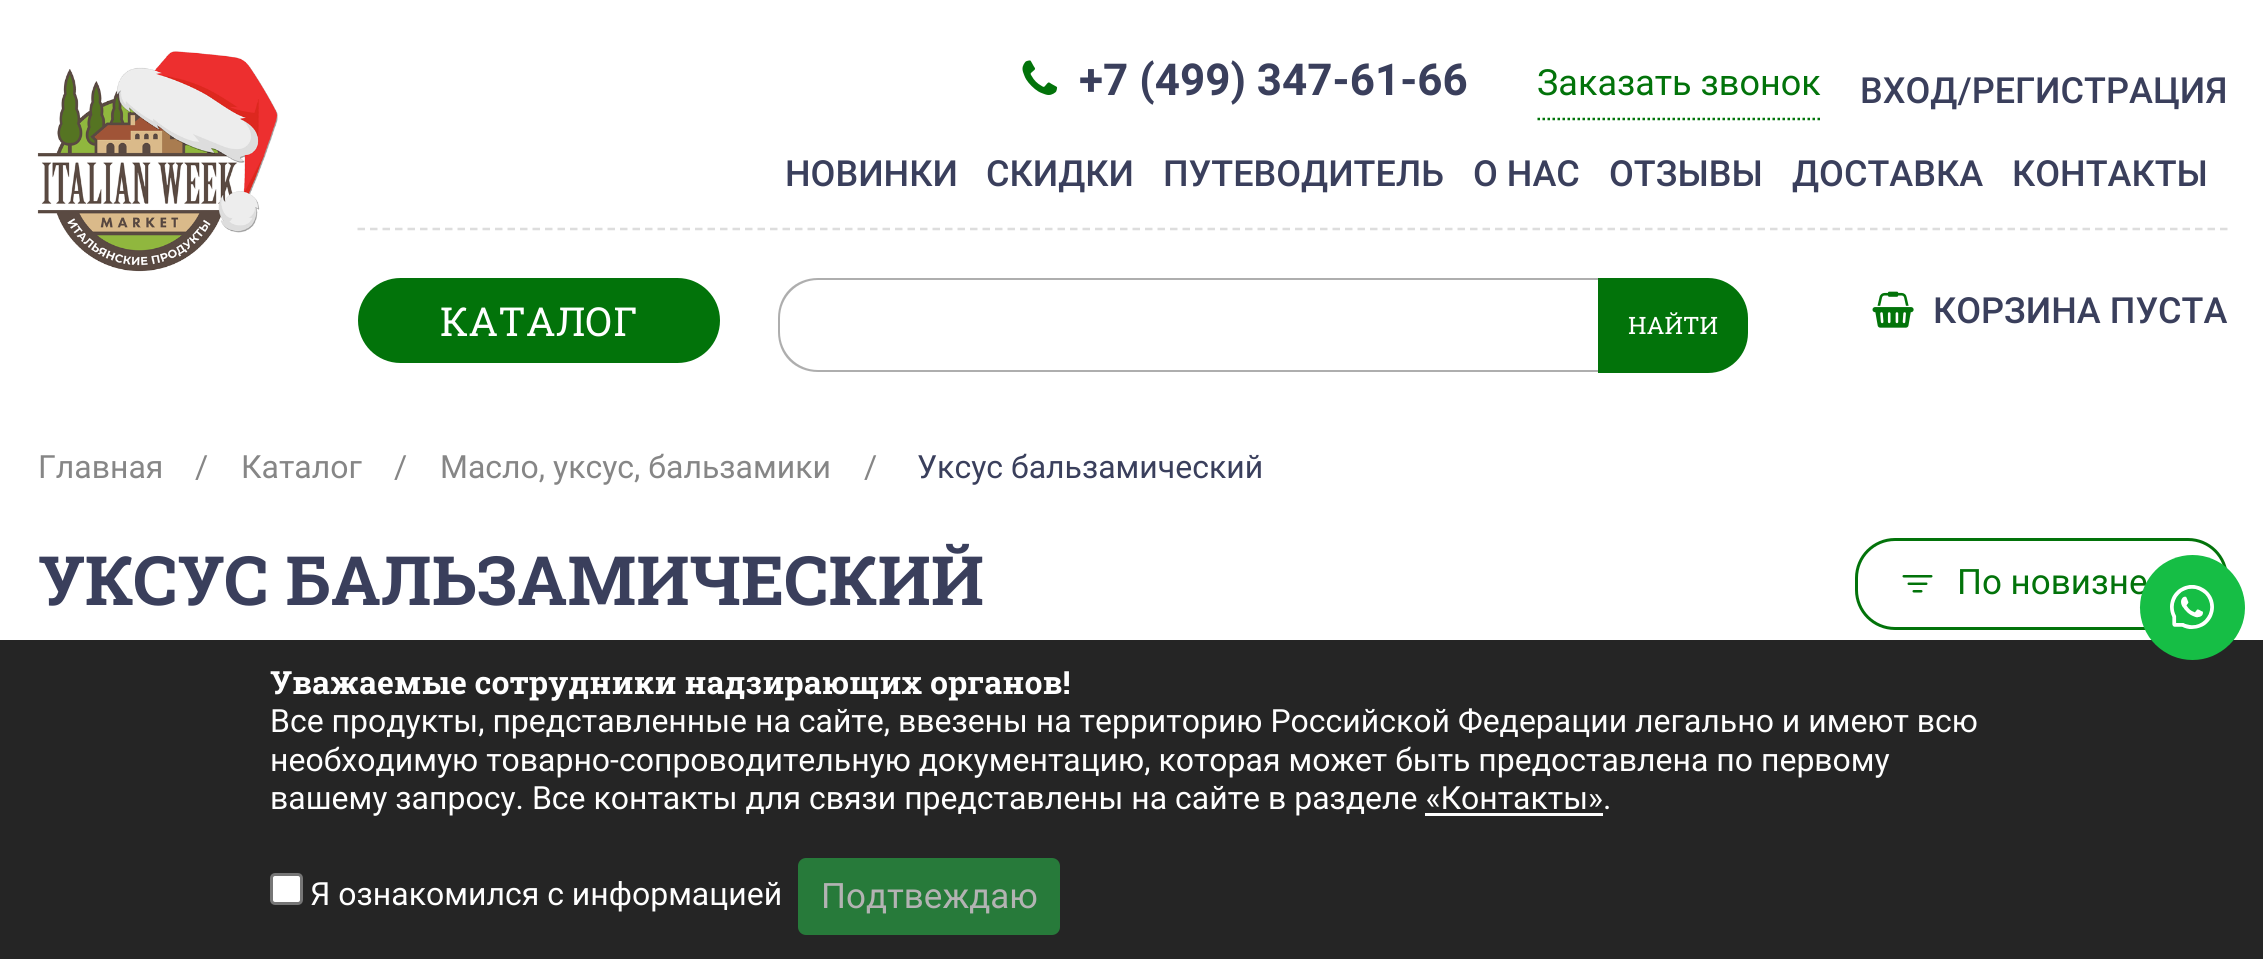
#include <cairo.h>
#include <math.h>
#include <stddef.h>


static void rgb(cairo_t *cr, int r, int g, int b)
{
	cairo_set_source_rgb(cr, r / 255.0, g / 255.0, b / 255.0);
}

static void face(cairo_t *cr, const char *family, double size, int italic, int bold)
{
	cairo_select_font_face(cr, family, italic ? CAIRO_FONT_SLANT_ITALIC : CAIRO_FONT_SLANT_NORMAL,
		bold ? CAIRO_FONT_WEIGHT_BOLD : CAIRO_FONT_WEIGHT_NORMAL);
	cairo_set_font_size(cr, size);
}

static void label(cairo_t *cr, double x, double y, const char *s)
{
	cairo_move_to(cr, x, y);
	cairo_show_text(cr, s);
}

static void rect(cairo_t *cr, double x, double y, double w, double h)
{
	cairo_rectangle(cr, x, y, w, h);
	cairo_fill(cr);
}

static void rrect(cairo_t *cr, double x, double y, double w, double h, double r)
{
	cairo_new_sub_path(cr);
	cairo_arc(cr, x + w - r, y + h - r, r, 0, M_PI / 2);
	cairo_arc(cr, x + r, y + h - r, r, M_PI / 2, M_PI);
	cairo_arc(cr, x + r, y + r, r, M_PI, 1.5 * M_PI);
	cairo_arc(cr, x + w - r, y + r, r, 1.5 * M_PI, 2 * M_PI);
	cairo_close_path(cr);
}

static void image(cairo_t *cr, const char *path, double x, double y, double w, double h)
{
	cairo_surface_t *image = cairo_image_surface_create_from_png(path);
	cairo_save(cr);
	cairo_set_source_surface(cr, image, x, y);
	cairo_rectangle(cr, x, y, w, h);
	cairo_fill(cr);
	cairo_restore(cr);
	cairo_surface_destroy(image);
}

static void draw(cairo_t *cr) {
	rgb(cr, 255, 255, 255);
	cairo_paint(cr);
	image(cr, "image0.png", 37, 51, 241, 221);
	cairo_new_path(cr);
	cairo_move_to(cr, 357.5, 229);
	cairo_line_to(cr, 2227.5, 229);
	rgb(cr, 221, 221, 221);
	cairo_set_line_width(cr, 2.5);
	cairo_set_dash(cr, (double[]){7.5, 5}, 2, 0);
	cairo_stroke(cr);
	image(cr, "image1.png", 1022, 60, 36, 35);
	face(cr, "Roboto", 44, 0, 1);
	rgb(cr, 58, 63, 92);
	label(cr, 1079, 95, "+7 (499) 347-61-66");
	cairo_new_path(cr);
	cairo_move_to(cr, 1537.5, 119);
	cairo_line_to(cr, 1820, 119);
	rgb(cr, 2, 115, 10);
	cairo_set_dash(cr, (double[]){2.5, 2.5}, 2, 0);
	cairo_stroke(cr);
	face(cr, "Roboto", 36, 0, 0);
	label(cr, 1537, 95, "Заказать звонок");
	face(cr, "Roboto Medium", 36, 0, 0);
	rgb(cr, 58, 63, 92);
	label(cr, 1860, 103, "ВХОД/РЕГИСТРАЦИЯ");
	label(cr, 785, 186, "НОВИНКИ");
	label(cr, 986, 186, "СКИДКИ");
	label(cr, 1163, 186, "ПУТЕВОДИТЕЛЬ");
	label(cr, 1473, 186, "О НАС");
	label(cr, 1609, 186, "ОТЗЫВЫ");
	label(cr, 1792, 186, "ДОСТАВКА");
	label(cr, 2012, 186, "КОНТАКТЫ");
	rgb(cr, 2, 115, 10);
	rrect(cr, 359.5, 279.5, 359, 82, 41);
	cairo_fill_preserve(cr);
	cairo_set_line_width(cr, 3);
	cairo_set_dash(cr, NULL, 0, 0);
	cairo_stroke(cr);
	face(cr, "Roboto Slab", 40, 0, 0);
	rgb(cr, 255, 255, 255);
	label(cr, 440, 336, "КАТАЛОГ");
	rgb(cr, 174, 174, 174);
	cairo_set_fill_rule(cr, CAIRO_FILL_RULE_EVEN_ODD);
	cairo_new_path(cr);
	cairo_move_to(cr, 818, 278);
	cairo_line_to(cr, 1598, 278);
	cairo_line_to(cr, 1598, 372);
	cairo_line_to(cr, 818, 372);
	cairo_curve_to(cr, 795, 372, 778, 355, 778, 332);
	cairo_line_to(cr, 778, 318);
	cairo_curve_to(cr, 778, 295, 795, 278, 818, 278);
	cairo_close_path(cr);
	cairo_move_to(cr, 818, 280);
	cairo_line_to(cr, 1598, 280);
	cairo_line_to(cr, 1598, 370);
	cairo_line_to(cr, 818, 370);
	cairo_curve_to(cr, 797, 370, 780, 353, 780, 332);
	cairo_line_to(cr, 780, 318);
	cairo_curve_to(cr, 780, 297, 797, 280, 818, 280);
	cairo_close_path(cr);
	cairo_fill(cr);
	rgb(cr, 2, 115, 10);
	cairo_new_path(cr);
	cairo_move_to(cr, 1598, 278);
	cairo_line_to(cr, 1708, 278);
	cairo_curve_to(cr, 1730, 278, 1748, 296, 1748, 318);
	cairo_line_to(cr, 1748, 333);
	cairo_curve_to(cr, 1748, 355, 1730, 373, 1708, 373);
	cairo_line_to(cr, 1598, 373);
	cairo_close_path(cr);
	cairo_fill(cr);
	face(cr, "Roboto Slab", 24, 0, 0);
	rgb(cr, 255, 255, 255);
	label(cr, 1628, 334, "НАЙТИ");
	image(cr, "image2.png", 1872, 291, 42, 37);
	face(cr, "Roboto Medium", 36, 0, 0);
	rgb(cr, 58, 63, 92);
	label(cr, 1933, 323, "КОРЗИНА ПУСТА");
	face(cr, "Roboto", 32, 0, 0);
	rgb(cr, 134, 134, 134);
	label(cr, 38, 478, "Главная");
	label(cr, 195, 478, "/");
	label(cr, 241, 478, "Каталог");
	label(cr, 394, 478, "/");
	label(cr, 440, 478, "Масло, уксус, бальзамики");
	label(cr, 864, 478, "/");
	rgb(cr, 58, 63, 92);
	label(cr, 917, 478, "Уксус бальзамический");
	face(cr, "Roboto Slab", 68, 0, 1);
	label(cr, 38, 605, "УКСУС БАЛЬЗАМИЧЕСКИЙ");
	rrect(cr, 1856.5, 539.5, 370, 89, 38.5);
	rgb(cr, 2, 115, 10);
	cairo_stroke(cr);
	image(cr, "image3.png", 1902, 575, 31, 18);
	face(cr, "Roboto", 35, 0, 0);
	label(cr, 1957, 594, "По новизне");
	rgb(cr, 37, 37, 37);
	rect(cr, 0, 640, 2263, 319);
	image(cr, "image4.png", 2139, 555, 106, 105);
	face(cr, "Roboto Slab", 32, 0, 1);
	rgb(cr, 255, 255, 255);
	label(cr, 270, 694, "Уважаемые сотрудники надзирающих органов!");
	face(cr, "Roboto", 32, 0, 0);
	label(cr, 270, 732, "Все продукты, представленные на сайте, ввезены на территорию Российской Федерации легально и имеют всю");
	label(cr, 270, 771, "необходимую товарно-сопроводительную документацию, которая может быть предоставлена по первому");
	label(cr, 270, 809, "вашему запросу. Все контакты для связи представлены на сайте в разделе «Контакты».");
	rect(cr, 1425, 813, 178, 3);
	rrect(cr, 271.5, 874.5, 30, 29, 3.5);
	cairo_fill_preserve(cr);
	rgb(cr, 118, 118, 118);
	cairo_stroke(cr);
	rgb(cr, 255, 255, 255);
	label(cr, 310, 905, "Я ознакомился с информацией");
	rgb(cr, 39, 122, 58);
	rrect(cr, 799.5, 859.5, 259, 74, 6.5);
	cairo_fill_preserve(cr);
	cairo_stroke(cr);
	face(cr, "Roboto", 35, 0, 0);
	rgb(cr, 179, 179, 179);
	label(cr, 821, 908, "Подтвеждаю");
}

int main(void) {
	cairo_surface_t *surface = cairo_image_surface_create(CAIRO_FORMAT_RGB24, 2263, 959);
	cairo_t *cr = cairo_create(surface);
	cairo_font_options_t *options = cairo_font_options_create();
	cairo_font_options_set_hint_metrics(options, CAIRO_HINT_METRICS_OFF);
	cairo_font_options_set_hint_style(options, CAIRO_HINT_STYLE_NONE);
	cairo_set_font_options(cr, options);
	cairo_set_miter_limit(cr, 4);
	draw(cr);
	cairo_surface_write_to_png(surface, "render.png");
	cairo_font_options_destroy(options);
	cairo_destroy(cr);
	cairo_surface_destroy(surface);
	return 0;
}
